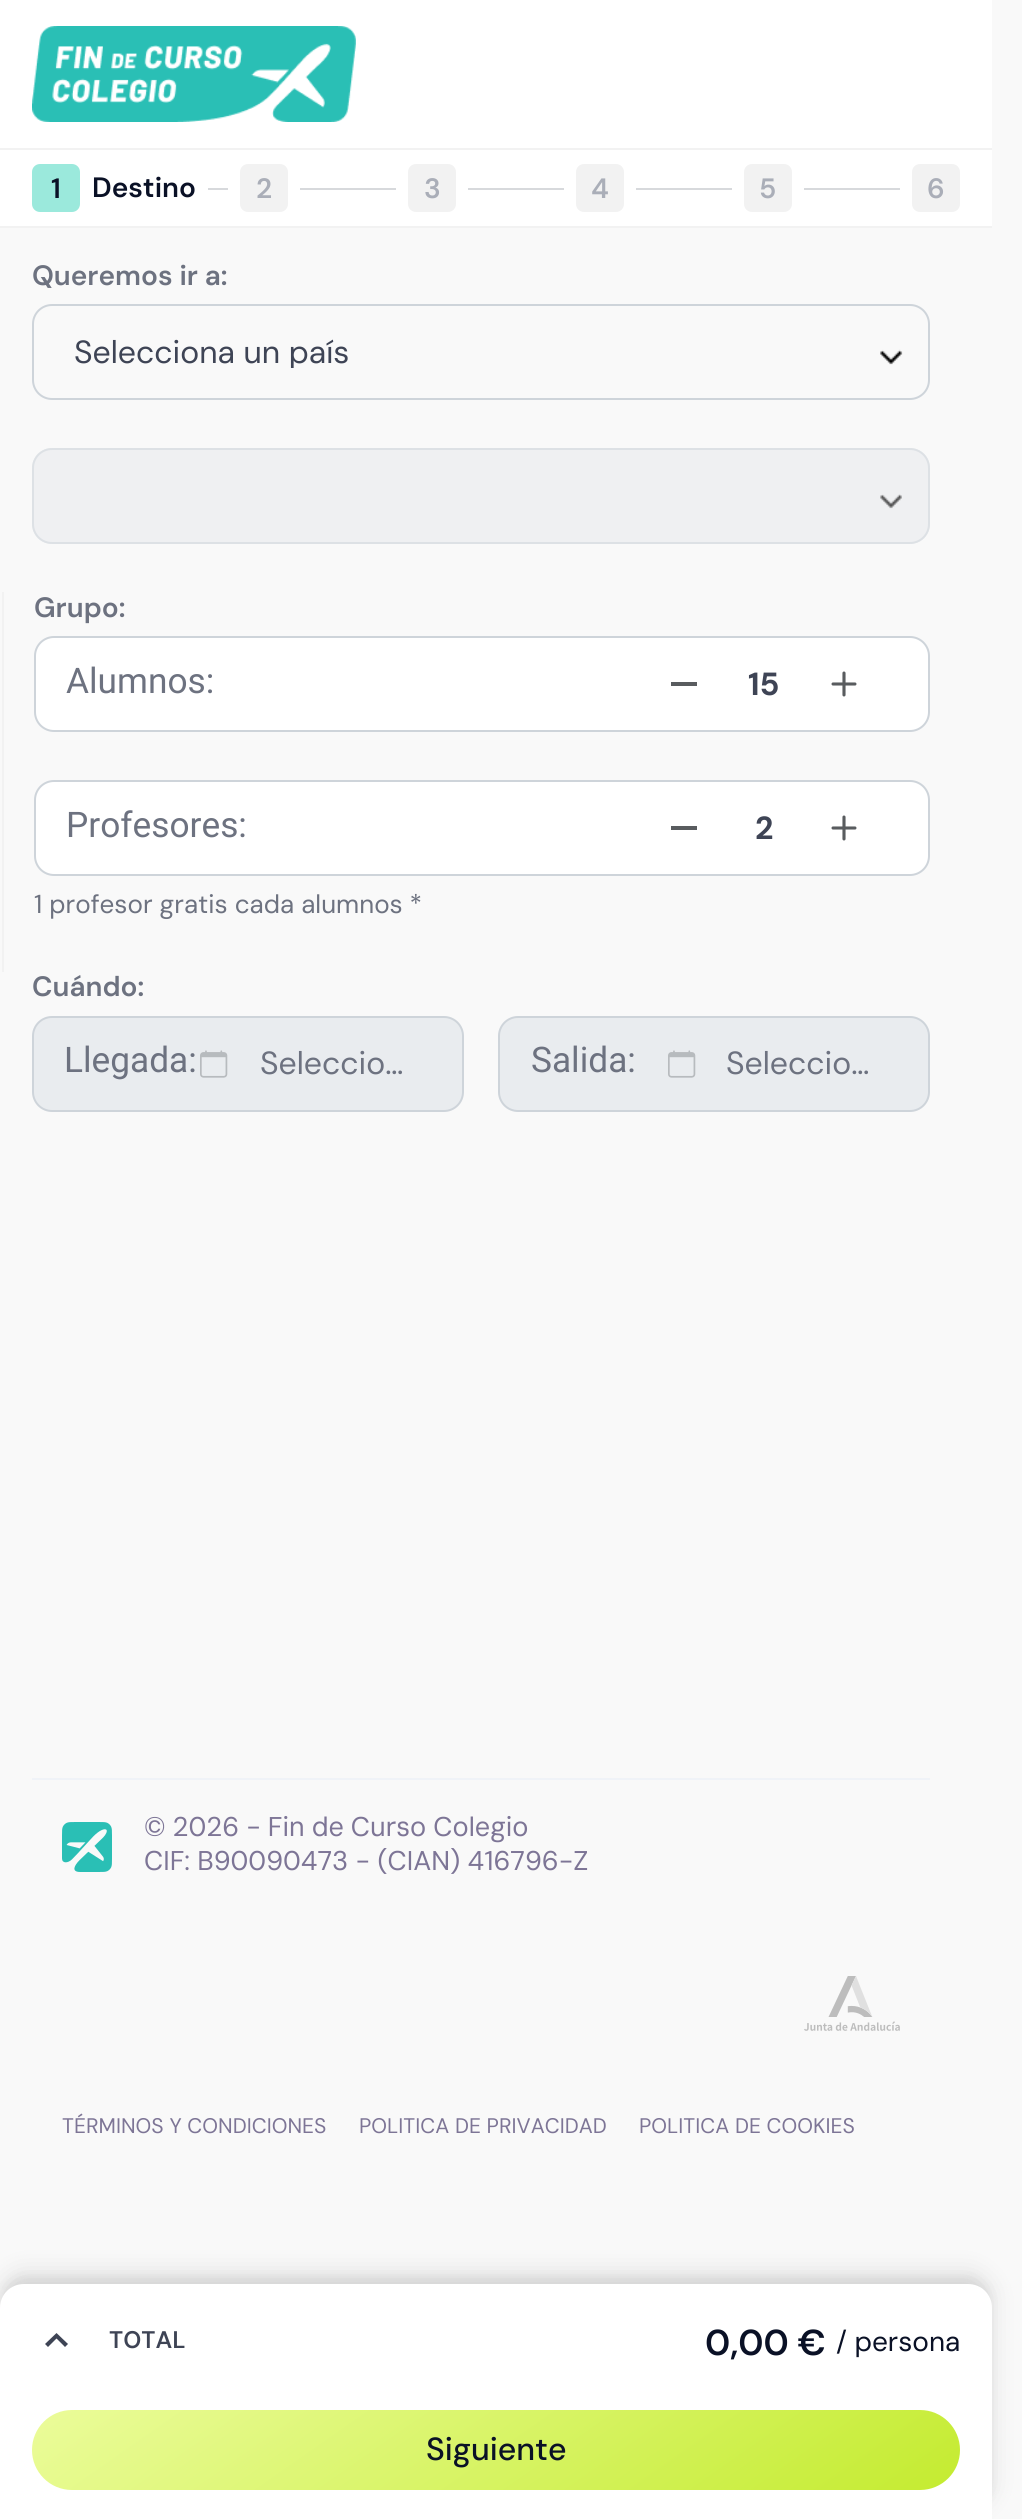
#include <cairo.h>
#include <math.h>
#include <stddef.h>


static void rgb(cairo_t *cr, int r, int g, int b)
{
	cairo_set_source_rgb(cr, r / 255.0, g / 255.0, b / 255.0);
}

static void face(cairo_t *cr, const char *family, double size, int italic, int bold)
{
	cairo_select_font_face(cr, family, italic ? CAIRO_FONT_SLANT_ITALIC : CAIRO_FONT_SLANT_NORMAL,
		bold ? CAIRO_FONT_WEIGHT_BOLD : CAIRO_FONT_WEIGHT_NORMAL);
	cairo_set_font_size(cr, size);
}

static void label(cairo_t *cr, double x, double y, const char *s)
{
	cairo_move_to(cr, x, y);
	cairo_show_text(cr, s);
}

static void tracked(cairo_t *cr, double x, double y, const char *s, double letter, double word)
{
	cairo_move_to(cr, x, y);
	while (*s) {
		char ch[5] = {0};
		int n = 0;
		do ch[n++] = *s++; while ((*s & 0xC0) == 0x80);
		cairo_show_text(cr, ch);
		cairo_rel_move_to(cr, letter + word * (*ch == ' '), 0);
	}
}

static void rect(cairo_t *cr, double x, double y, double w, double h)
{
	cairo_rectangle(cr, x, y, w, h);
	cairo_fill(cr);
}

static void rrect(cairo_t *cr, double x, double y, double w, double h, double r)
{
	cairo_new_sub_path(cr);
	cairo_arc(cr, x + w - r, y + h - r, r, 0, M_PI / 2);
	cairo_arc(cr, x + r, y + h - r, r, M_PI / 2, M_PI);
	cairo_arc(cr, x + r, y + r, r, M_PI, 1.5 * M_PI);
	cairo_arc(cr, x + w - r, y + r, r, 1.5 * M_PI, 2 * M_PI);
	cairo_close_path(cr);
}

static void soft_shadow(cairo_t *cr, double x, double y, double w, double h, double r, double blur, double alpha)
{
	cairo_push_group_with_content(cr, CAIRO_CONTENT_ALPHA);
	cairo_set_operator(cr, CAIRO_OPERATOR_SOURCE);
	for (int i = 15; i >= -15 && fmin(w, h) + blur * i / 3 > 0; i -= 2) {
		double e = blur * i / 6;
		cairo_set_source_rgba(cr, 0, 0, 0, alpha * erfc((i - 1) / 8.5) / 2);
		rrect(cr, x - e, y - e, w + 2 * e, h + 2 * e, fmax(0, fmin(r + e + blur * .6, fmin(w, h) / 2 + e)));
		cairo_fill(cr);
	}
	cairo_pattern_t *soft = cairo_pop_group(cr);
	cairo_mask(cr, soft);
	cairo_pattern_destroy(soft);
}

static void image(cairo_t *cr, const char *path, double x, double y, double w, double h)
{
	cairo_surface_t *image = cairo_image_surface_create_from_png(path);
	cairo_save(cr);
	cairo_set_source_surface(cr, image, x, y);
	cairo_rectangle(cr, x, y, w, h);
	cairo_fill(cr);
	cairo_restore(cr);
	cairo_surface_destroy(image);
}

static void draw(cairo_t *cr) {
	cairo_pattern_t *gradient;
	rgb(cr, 249, 249, 249);
	cairo_paint(cr);
	rgb(cr, 255, 255, 255);
	rect(cr, 0, 0, 992, 148);
	rgb(cr, 242, 242, 242);
	rect(cr, 0, 148, 992, 2);
	image(cr, "image0.png", 32, 26, 324, 96);
	rgb(cr, 255, 255, 255);
	rect(cr, 0, 150, 992, 76);
	rgb(cr, 242, 242, 242);
	rect(cr, 0, 226, 992, 2);
	rgb(cr, 155, 233, 220);
	rrect(cr, 32, 164, 48, 48, 8);
	cairo_fill(cr);
	face(cr, "DM Sans SemiBold", 28, 0, 0);
	rgb(cr, 10, 17, 38);
	label(cr, 51, 198, "1");
	label(cr, 92, 197, "Destino");
	rgb(cr, 215, 217, 220);
	rect(cr, 208, 188, 20, 2);
	rgb(cr, 242, 242, 242);
	rrect(cr, 240, 164, 48, 48, 8);
	cairo_fill(cr);
	rgb(cr, 170, 174, 184);
	label(cr, 256, 198, "2");
	rgb(cr, 215, 217, 220);
	rect(cr, 300, 188, 96, 2);
	rgb(cr, 242, 242, 242);
	rrect(cr, 408, 164, 48, 48, 8);
	cairo_fill(cr);
	rgb(cr, 170, 174, 184);
	label(cr, 424, 198, "3");
	rgb(cr, 215, 217, 220);
	rect(cr, 468, 188, 96, 2);
	rgb(cr, 242, 242, 242);
	rrect(cr, 576, 164, 48, 48, 8);
	cairo_fill(cr);
	rgb(cr, 170, 174, 184);
	label(cr, 591, 198, "4");
	rgb(cr, 215, 217, 220);
	rect(cr, 636, 188, 96, 2);
	rgb(cr, 242, 242, 242);
	rrect(cr, 744, 164, 48, 48, 8);
	cairo_fill(cr);
	rgb(cr, 170, 174, 184);
	label(cr, 759, 198, "5");
	rgb(cr, 215, 217, 220);
	rect(cr, 804, 188, 96, 2);
	rgb(cr, 242, 242, 242);
	rrect(cr, 912, 164, 48, 48, 8);
	cairo_fill(cr);
	rgb(cr, 170, 174, 184);
	label(cr, 927, 198, "6");
	rgb(cr, 0, 0, 0);
	soft_shadow(cr, 0, 2276, 992, 236, 24, 4, 0.05);
	soft_shadow(cr, 0, 2272, 992, 236, 24, 12, 0.1);
	rgb(cr, 255, 255, 255);
	cairo_new_path(cr);
	cairo_move_to(cr, 24, 2284);
	cairo_line_to(cr, 968, 2284);
	cairo_curve_to(cr, 981.5, 2284, 992, 2294.5, 992, 2308);
	cairo_line_to(cr, 992, 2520);
	cairo_line_to(cr, 0, 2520);
	cairo_line_to(cr, 0, 2308);
	cairo_curve_to(cr, 0, 2294.5, 10.5, 2284, 24, 2284);
	cairo_close_path(cr);
	cairo_fill(cr);
	rgb(cr, 62, 68, 85);
	cairo_set_fill_rule(cr, CAIRO_FILL_RULE_EVEN_ODD);
	cairo_new_path(cr);
	cairo_move_to(cr, 48, 2347);
	cairo_line_to(cr, 56.5, 2338.5);
	cairo_line_to(cr, 65, 2347);
	cairo_line_to(cr, 68, 2344);
	cairo_line_to(cr, 56.5, 2333);
	cairo_line_to(cr, 45, 2344);
	cairo_close_path(cr);
	cairo_fill(cr);
	face(cr, "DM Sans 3 SemiBold", 24, 0, 0);
	label(cr, 109, 2348, "TOTAL");
	face(cr, "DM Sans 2 SemiBold", 36, 0, 0);
	rgb(cr, 10, 17, 38);
	label(cr, 705, 2355, "0,00 €");
	face(cr, "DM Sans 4", 28, 0, 0);
	label(cr, 836, 2351, "/ persona");
	gradient = cairo_pattern_create_linear(325, 2205, 667, 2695);
	cairo_pattern_add_color_stop_rgba(gradient, 0, 0.922, 0.988, 0.604, 1);
	cairo_pattern_add_color_stop_rgba(gradient, 1, 0.769, 0.922, 0.188, 1);
	cairo_set_source(cr, gradient);
	cairo_pattern_destroy(gradient);
	rrect(cr, 32, 2410, 928, 80, 40);
	cairo_fill(cr);
	face(cr, "DM Sans Medium", 32, 0, 0);
	rgb(cr, 10, 17, 38);
	label(cr, 426, 2460, "Siguiente");
	face(cr, "DM Sans SemiBold", 28, 0, 0);
	rgb(cr, 109, 114, 128);
	label(cr, 32, 285, "Queremos ir a:");
	image(cr, "image1.png", 880, 349, 23, 16);
	rrect(cr, 33, 305, 896, 94, 19);
	rgb(cr, 206, 212, 218);
	cairo_stroke(cr);
	cairo_save(cr);
	cairo_set_fill_rule(cr, CAIRO_FILL_RULE_WINDING);
	cairo_rectangle(cr, 74, 336, 804, 32);
	cairo_clip(cr);
	face(cr, "DM Sans 2", 32, 0, 0);
	rgb(cr, 62, 68, 85);
	label(cr, 74, 363, "Selecciona un país");
	cairo_restore(cr);
	rgb(cr, 239, 240, 242);
	rrect(cr, 32, 448, 898, 96, 20);
	cairo_fill(cr);
	image(cr, "image2.png", 880, 494, 22, 15);
	rrect(cr, 33, 449, 896, 94, 19);
	rgb(cr, 221, 225, 229);
	cairo_stroke(cr);
	rgb(cr, 242, 242, 242);
	rect(cr, 2, 592, 2, 380);
	rgb(cr, 109, 114, 128);
	label(cr, 34, 617, "Grupo:");
	rgb(cr, 255, 255, 255);
	rrect(cr, 35, 637, 894, 94, 19);
	cairo_fill_preserve(cr);
	rgb(cr, 206, 212, 218);
	cairo_stroke(cr);
	face(cr, "Roboto", 35.25, 0, 0);
	rgb(cr, 109, 114, 128);
	label(cr, 66, 693, "Alumnos:");
	rgb(cr, 89, 92, 95);
	rect(cr, 671, 682, 26, 4);
	face(cr, "DM Sans", 32, 0, 1);
	rgb(cr, 62, 68, 85);
	label(cr, 748, 695, "15");
	image(cr, "image3.png", 831, 671, 26, 26);
	rgb(cr, 255, 255, 255);
	rrect(cr, 35, 781, 894, 94, 19);
	cairo_fill_preserve(cr);
	rgb(cr, 206, 212, 218);
	cairo_stroke(cr);
	face(cr, "Roboto", 35.25, 0, 0);
	rgb(cr, 109, 114, 128);
	label(cr, 66, 837, "Profesores:");
	rgb(cr, 89, 92, 95);
	rect(cr, 671, 826, 26, 4);
	face(cr, "DM Sans", 32, 0, 1);
	rgb(cr, 62, 68, 85);
	label(cr, 755, 839, "2");
	image(cr, "image3.png", 831, 815, 26, 26);
	face(cr, "DM Sans 3", 26, 0, 0);
	rgb(cr, 109, 114, 128);
	label(cr, 34, 913, "1 profesor gratis cada alumnos *");
	face(cr, "DM Sans SemiBold", 28, 0, 0);
	label(cr, 32, 996, "Cuándo:");
	rgb(cr, 233, 236, 239);
	rrect(cr, 33, 1017, 430, 94, 19);
	cairo_fill_preserve(cr);
	rgb(cr, 206, 212, 218);
	cairo_stroke(cr);
	face(cr, "Roboto", 35.25, 0, 0);
	rgb(cr, 109, 114, 128);
	label(cr, 64, 1072, "Llegada:");
	image(cr, "image4.png", 200, 1050, 28, 28);
	face(cr, "DM Sans 2", 32, 0, 0);
	label(cr, 260, 1074, "Seleccio…");
	rgb(cr, 233, 236, 239);
	rrect(cr, 499, 1017, 430, 94, 19);
	cairo_fill_preserve(cr);
	rgb(cr, 206, 212, 218);
	cairo_stroke(cr);
	face(cr, "Roboto", 35.25, 0, 0);
	rgb(cr, 109, 114, 128);
	label(cr, 531, 1072, "Salida:");
	image(cr, "image4.png", 668, 1050, 28, 28);
	face(cr, "DM Sans 2", 32, 0, 0);
	label(cr, 726, 1074, "Seleccio…");
	rgb(cr, 240, 243, 248);
	rect(cr, 32, 1778, 898, 2);
	image(cr, "image5.png", 62, 1822, 50, 50);
	face(cr, "DM Sans", 27.1, 0, 0);
	rgb(cr, 125, 117, 150);
	tracked(cr, 144, 1836, "© 2026 - Fin de Curso Colegio", 0, -0.25);
	label(cr, 144, 1870, "CIF: B90090473 - (CIAN) 416796-Z");
	image(cr, "image6.png", 804, 1976, 96, 55);
	face(cr, "DM Sans", 21.1, 0, 0);
	label(cr, 62, 2133, "TÉRMINOS Y CONDICIONES");
	label(cr, 359, 2133, "POLITICA DE PRIVACIDAD");
	label(cr, 639, 2133, "POLITICA DE COOKIES");
}

int main(void) {
	cairo_surface_t *surface = cairo_image_surface_create(CAIRO_FORMAT_RGB24, 1022, 2519);
	cairo_t *cr = cairo_create(surface);
	cairo_font_options_t *options = cairo_font_options_create();
	cairo_font_options_set_hint_metrics(options, CAIRO_HINT_METRICS_OFF);
	cairo_font_options_set_hint_style(options, CAIRO_HINT_STYLE_NONE);
	cairo_set_font_options(cr, options);
	cairo_set_miter_limit(cr, 4);
	draw(cr);
	cairo_surface_write_to_png(surface, "render.png");
	cairo_font_options_destroy(options);
	cairo_destroy(cr);
	cairo_surface_destroy(surface);
	return 0;
}
